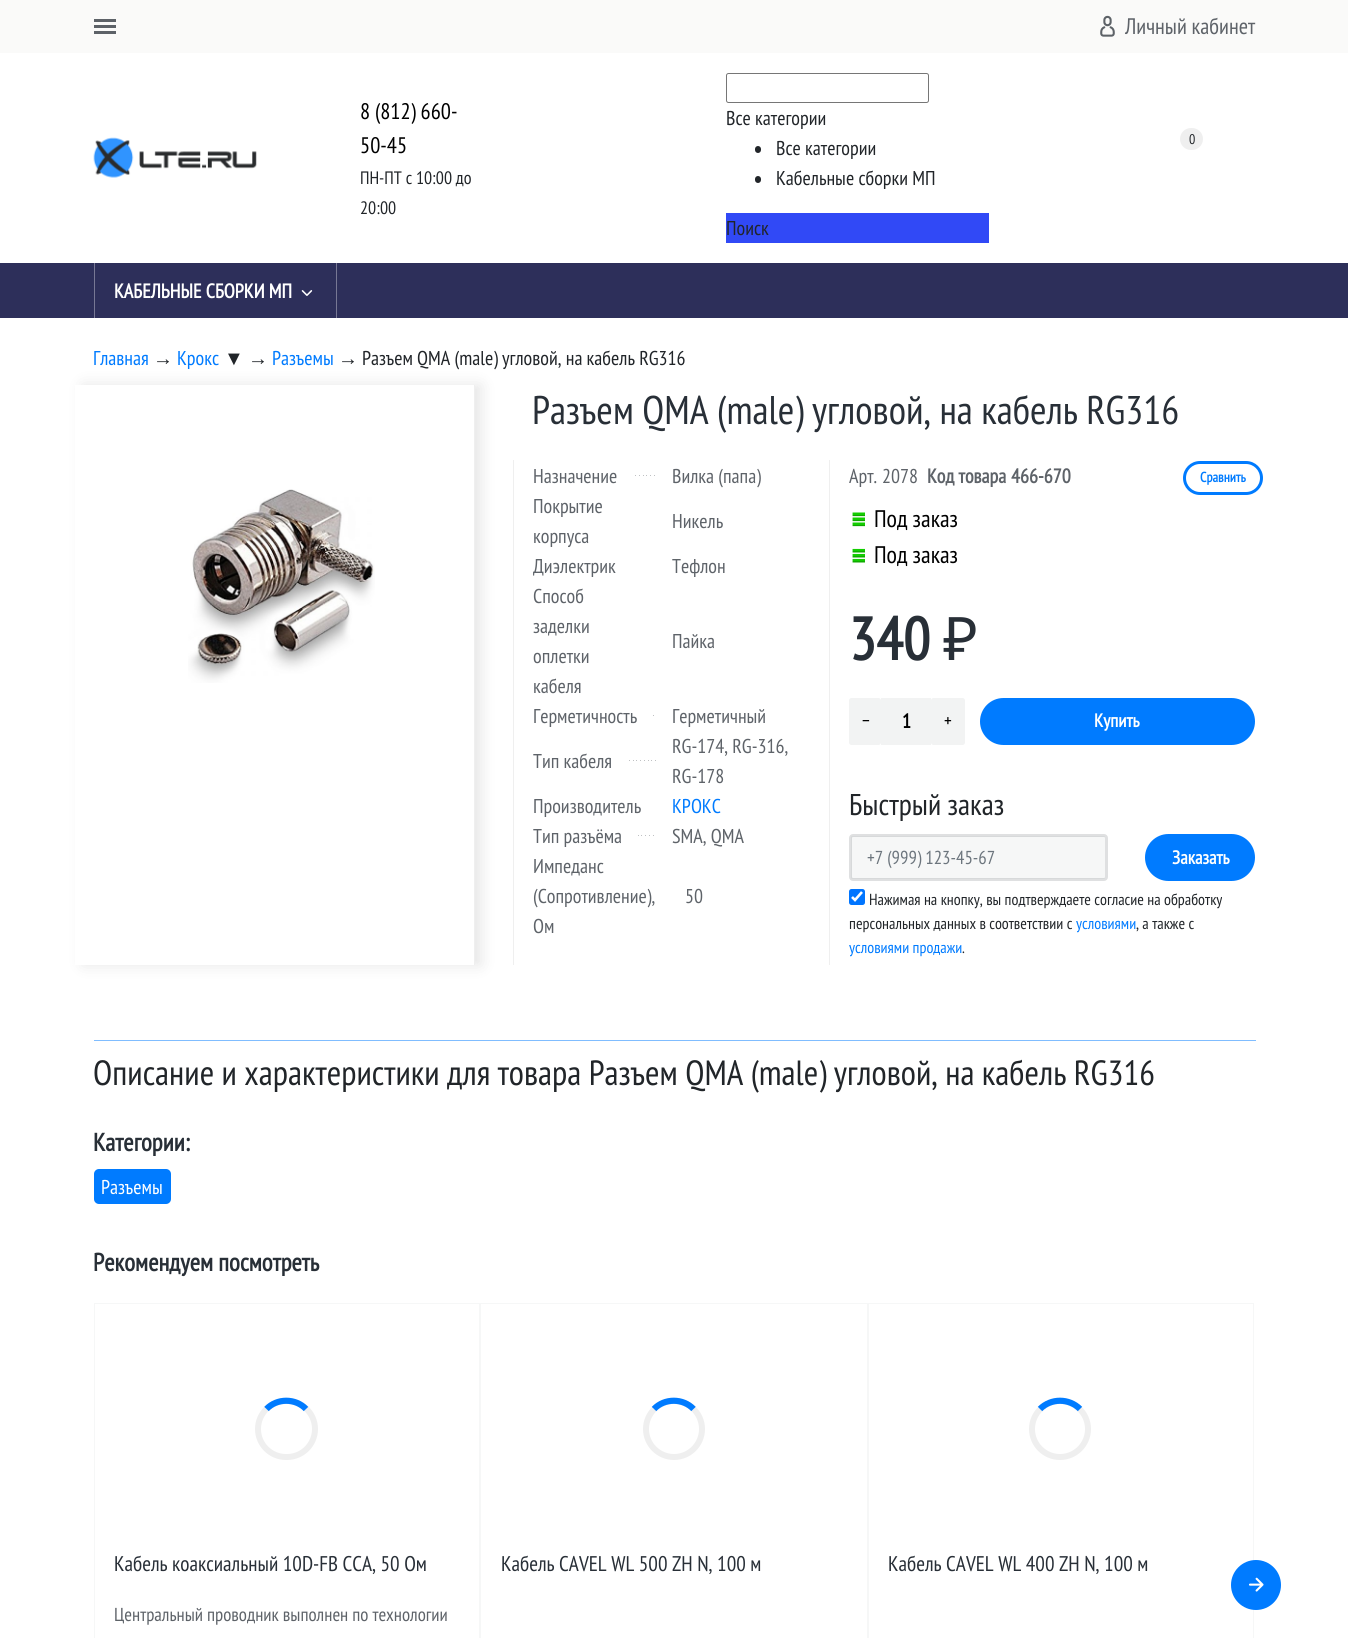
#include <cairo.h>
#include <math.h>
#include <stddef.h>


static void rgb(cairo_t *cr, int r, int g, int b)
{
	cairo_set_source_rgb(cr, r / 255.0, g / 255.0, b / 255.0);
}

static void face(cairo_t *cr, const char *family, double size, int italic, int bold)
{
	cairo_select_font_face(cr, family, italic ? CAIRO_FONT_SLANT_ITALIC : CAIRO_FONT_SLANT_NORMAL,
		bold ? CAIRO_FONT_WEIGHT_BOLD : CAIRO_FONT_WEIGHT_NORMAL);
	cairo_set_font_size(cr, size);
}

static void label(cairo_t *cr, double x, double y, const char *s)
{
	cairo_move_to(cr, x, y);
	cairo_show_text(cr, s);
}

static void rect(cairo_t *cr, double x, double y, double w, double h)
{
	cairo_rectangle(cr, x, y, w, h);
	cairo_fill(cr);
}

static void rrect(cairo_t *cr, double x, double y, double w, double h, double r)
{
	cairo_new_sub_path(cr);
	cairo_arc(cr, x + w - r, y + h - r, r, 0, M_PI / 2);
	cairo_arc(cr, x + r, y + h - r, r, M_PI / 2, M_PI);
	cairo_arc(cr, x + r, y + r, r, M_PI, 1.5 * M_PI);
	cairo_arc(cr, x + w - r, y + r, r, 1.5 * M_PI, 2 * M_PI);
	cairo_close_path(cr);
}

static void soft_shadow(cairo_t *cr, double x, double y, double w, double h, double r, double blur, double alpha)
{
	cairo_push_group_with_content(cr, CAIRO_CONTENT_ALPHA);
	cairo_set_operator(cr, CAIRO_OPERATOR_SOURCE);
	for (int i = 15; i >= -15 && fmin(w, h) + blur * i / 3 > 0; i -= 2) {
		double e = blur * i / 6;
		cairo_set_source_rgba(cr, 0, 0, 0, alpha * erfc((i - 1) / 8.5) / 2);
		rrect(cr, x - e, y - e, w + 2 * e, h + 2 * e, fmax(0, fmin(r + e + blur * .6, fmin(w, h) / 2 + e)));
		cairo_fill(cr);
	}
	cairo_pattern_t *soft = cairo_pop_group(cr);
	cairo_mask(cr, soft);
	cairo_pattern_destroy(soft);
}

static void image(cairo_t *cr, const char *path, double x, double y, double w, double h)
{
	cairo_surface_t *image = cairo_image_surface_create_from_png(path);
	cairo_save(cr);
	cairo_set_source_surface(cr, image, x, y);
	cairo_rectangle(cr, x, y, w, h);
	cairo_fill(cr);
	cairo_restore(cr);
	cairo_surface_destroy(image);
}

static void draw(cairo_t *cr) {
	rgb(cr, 255, 255, 255);
	cairo_paint(cr);
	rgb(cr, 250, 250, 249);
	rect(cr, 0, 0, 1348, 53);
	rgb(cr, 93, 98, 104);
	rect(cr, 94, 19, 22, 3);
	rect(cr, 94, 25, 22, 3);
	rect(cr, 94, 31, 22, 3);
	image(cr, "image0.png", 1100, 15, 15, 22);
	face(cr, "PT Sans Narrow", 22.5, 0, 0);
	rgb(cr, 94, 99, 105);
	label(cr, 1125, 34, "Личный кабинет");
	image(cr, "image1.png", 93, 137, 164, 41);
	rgb(cr, 0, 0, 0);
	label(cr, 360, 119, "8 (812) 660-");
	label(cr, 360, 153, "50-45");
	face(cr, "PT Sans Narrow", 18, 0, 0);
	rgb(cr, 33, 37, 41);
	label(cr, 360, 184, "ПН-ПТ с 10:00 до");
	label(cr, 360, 214, "20:00");
	rrect(cr, 726.5, 73.5, 202, 29, 2);
	rgb(cr, 118, 118, 118);
	cairo_set_line_width(cr, 1);
	cairo_stroke(cr);
	face(cr, "PT Sans Narrow", 20, 0, 0);
	rgb(cr, 33, 37, 41);
	label(cr, 726, 125, "Все категории");
	rrect(cr, 755, 146, 6, 7, 3);
	cairo_fill(cr);
	label(cr, 776, 155, "Все категории");
	rrect(cr, 755, 176, 6, 7, 3);
	cairo_fill(cr);
	label(cr, 776, 185, "Кабельные сборки МП");
	rgb(cr, 49, 73, 246);
	rect(cr, 726, 213, 263, 30);
	rgb(cr, 33, 37, 41);
	label(cr, 726, 235, "Поиск");
	rgb(cr, 239, 239, 239);
	rrect(cr, 1180, 128, 23, 22, 11);
	cairo_fill(cr);
	face(cr, "PT Sans Narrow", 14, 0, 0);
	rgb(cr, 33, 37, 41);
	label(cr, 1189, 144, "0");
	rgb(cr, 45, 47, 90);
	rect(cr, 0, 263, 1348, 55);
	rgb(cr, 119, 120, 148);
	rect(cr, 336, 263, 1, 55);
	rect(cr, 94, 263, 1, 55);
	face(cr, "PT Sans Narrow", 20, 0, 1);
	rgb(cr, 255, 255, 255);
	label(cr, 114, 298, "КАБЕЛЬНЫЕ СБОРКИ МП");
	image(cr, "image2.png", 301, 290, 12, 6);
	face(cr, "PT Sans Narrow", 20, 0, 0);
	rgb(cr, 0, 123, 255);
	label(cr, 93, 365, "Главная");
	face(cr, "Liberation Sans", 20, 0, 0);
	rgb(cr, 33, 37, 41);
	label(cr, 153, 365, "→");
	face(cr, "PT Sans Narrow", 20, 0, 0);
	rgb(cr, 0, 123, 255);
	label(cr, 177, 365, "Крокс");
	face(cr, "Liberation Sans", 20, 0, 0);
	rgb(cr, 33, 37, 41);
	label(cr, 224, 365, "▼");
	label(cr, 248, 365, "→");
	face(cr, "PT Sans Narrow", 20, 0, 0);
	rgb(cr, 0, 123, 255);
	label(cr, 272, 365, "Разъемы");
	face(cr, "Liberation Sans", 20, 0, 0);
	rgb(cr, 33, 37, 41);
	label(cr, 338, 365, "→");
	face(cr, "PT Sans Narrow", 20, 0, 0);
	label(cr, 362, 365, "Разъем QMA (male) угловой, на кабель RG316");
	rgb(cr, 0, 0, 0);
	soft_shadow(cr, 83, 385, 398, 580, 0, 7.5, 0.1);
	rgb(cr, 255, 255, 255);
	rect(cr, 75, 385, 399, 580);
	image(cr, "image3.png", 188, 489, 187, 194);
	rgb(cr, 239, 239, 239);
	rect(cr, 474, 385, 1, 580);
	face(cr, "PT Sans Narrow", 40, 0, 0);
	rgb(cr, 40, 47, 55);
	label(cr, 532, 424, "Разъем QMA (male) угловой, на кабель RG316");
	rgb(cr, 239, 239, 239);
	rect(cr, 829, 460, 1, 505);
	rect(cr, 513, 460, 1, 505);
	face(cr, "PT Sans Narrow", 20, 0, 0);
	rgb(cr, 94, 99, 105);
	label(cr, 533, 483, "Назначение");
	image(cr, "image4.png", 635, 475, 20, 1);
	label(cr, 672, 483, "Вилка (папа)");
	label(cr, 533, 513, "Покрытие");
	label(cr, 533, 543, "корпуса");
	label(cr, 672, 528, "Никель");
	label(cr, 533, 573, "Диэлектрик");
	label(cr, 672, 573, "Тефлон");
	label(cr, 533, 603, "Способ");
	label(cr, 533, 633, "заделки");
	label(cr, 533, 663, "оплетки");
	label(cr, 533, 693, "кабеля");
	label(cr, 672, 648, "Пайка");
	label(cr, 533, 723, "Герметичность");
	rgb(cr, 191, 193, 195);
	rect(cr, 653, 715, 1, 1);
	rgb(cr, 94, 99, 105);
	label(cr, 672, 723, "Герметичный");
	label(cr, 533, 768, "Тип кабеля");
	image(cr, "image5.png", 629, 760, 27, 1);
	label(cr, 672, 753, "RG-174, RG-316,");
	label(cr, 672, 783, "RG-178");
	label(cr, 533, 813, "Производитель");
	rgb(cr, 0, 123, 255);
	label(cr, 672, 813, "КРОКС");
	rgb(cr, 94, 99, 105);
	label(cr, 533, 843, "Тип разъёма");
	image(cr, "image6.png", 638, 835, 16, 1);
	label(cr, 672, 843, "SMA, QMA");
	label(cr, 533, 873, "Импеданс");
	label(cr, 533, 903, "(Сопротивление),");
	label(cr, 533, 933, "Ом");
	label(cr, 685, 903, "50");
	label(cr, 849, 483, "Арт.");
	label(cr, 882, 483, "2078");
	face(cr, "PT Sans Narrow", 20, 0, 1);
	label(cr, 927, 483, "Код товара");
	label(cr, 1011, 483, "466-670");
	rrect(cr, 1184.5, 462.5, 77, 31, 15.5);
	rgb(cr, 0, 123, 255);
	cairo_set_line_width(cr, 3);
	cairo_stroke(cr);
	face(cr, "PT Sans Narrow", 14, 0, 1);
	label(cr, 1200, 482, "Сравнить");
	image(cr, "image7.png", 852, 512, 13, 15);
	face(cr, "PT Sans Narrow", 24, 0, 0);
	rgb(cr, 0, 0, 0);
	label(cr, 874, 527, "Под заказ");
	image(cr, "image8.png", 852, 548, 13, 15);
	label(cr, 874, 563, "Под заказ");
	face(cr, "PT Sans Narrow", 60, 0, 1);
	rgb(cr, 40, 47, 55);
	label(cr, 849, 660, "340");
	face(cr, "Noto Sans", 60, 0, 0);
	label(cr, 943, 660, "₽");
	rgb(cr, 242, 243, 243);
	rrect(cr, 849, 698, 32, 47, 2.5);
	cairo_fill(cr);
	face(cr, "PT Sans Narrow", 18.75, 0, 0);
	rgb(cr, 0, 0, 0);
	label(cr, 862, 727, "−");
	rgb(cr, 242, 243, 243);
	rect(cr, 881, 698, 50, 47);
	face(cr, "PT Sans Narrow", 20, 0, 1);
	rgb(cr, 0, 0, 0);
	label(cr, 902, 728, "1");
	rgb(cr, 242, 243, 243);
	rrect(cr, 931, 698, 34, 47, 2.5);
	cairo_fill(cr);
	face(cr, "PT Sans Narrow", 18.75, 0, 0);
	rgb(cr, 0, 0, 0);
	label(cr, 944, 727, "+");
	rgb(cr, 0, 123, 255);
	rrect(cr, 981.5, 699.5, 272, 44, 22);
	cairo_fill_preserve(cr);
	cairo_stroke(cr);
	face(cr, "PT Sans Narrow", 18.75, 0, 1);
	rgb(cr, 255, 255, 255);
	label(cr, 1094, 727, "Купить");
	face(cr, "PT Sans Narrow", 30, 0, 0);
	rgb(cr, 33, 37, 41);
	label(cr, 849, 815, "Быстрый заказ");
	rgb(cr, 246, 247, 247);
	rrect(cr, 851, 836, 254, 43, 1);
	cairo_fill(cr);
	rrect(cr, 850.5, 835.5, 256, 44, 2.5);
	cairo_set_source_rgba(cr, 0.157, 0.184, 0.216, 0.15);
	cairo_stroke(cr);
	face(cr, "PT Sans Narrow", 18.75, 0, 0);
	rgb(cr, 108, 117, 125);
	label(cr, 867, 864, "+7 (999) 123-45-67");
	rgb(cr, 0, 123, 255);
	rrect(cr, 1146.5, 835.5, 107, 44, 22);
	cairo_fill_preserve(cr);
	cairo_stroke(cr);
	face(cr, "PT Sans Narrow", 18.75, 0, 1);
	rgb(cr, 255, 255, 255);
	label(cr, 1172, 864, "Заказать");
	rgb(cr, 0, 117, 255);
	rrect(cr, 849, 889, 16, 16, 2.5);
	cairo_fill(cr);
	cairo_new_path(cr);
	cairo_move_to(cr, 852, 897);
	cairo_line_to(cr, 855, 900);
	cairo_line_to(cr, 862, 892);
	rgb(cr, 255, 255, 255);
	cairo_set_line_width(cr, 2.6);
	cairo_stroke(cr);
	face(cr, "PT Sans Narrow", 16, 0, 0);
	rgb(cr, 33, 37, 41);
	label(cr, 869, 905, "Нажимая на кнопку, вы подтверждаете согласие на обработку");
	label(cr, 849, 929, "персональных данных в соответствии с");
	rgb(cr, 0, 123, 255);
	label(cr, 1076, 929, "условиями");
	rgb(cr, 33, 37, 41);
	label(cr, 1136, 929, ", а также c");
	rgb(cr, 0, 123, 255);
	label(cr, 849, 953, "условиями продажи");
	rgb(cr, 33, 37, 41);
	label(cr, 962, 953, ".");
	rgb(cr, 128, 189, 255);
	rect(cr, 94, 1040, 1162, 1);
	face(cr, "PT Sans Narrow", 35, 0, 0);
	rgb(cr, 33, 37, 41);
	label(cr, 93, 1085, "Описание и характеристики для товара Разъем QMA (male) угловой, на кабель RG316");
	face(cr, "PT Sans Narrow", 25, 0, 1);
	rgb(cr, 40, 47, 55);
	label(cr, 93, 1151, "Категории:");
	rgb(cr, 0, 123, 255);
	rrect(cr, 94, 1169, 77, 35, 5);
	cairo_fill(cr);
	face(cr, "PT Sans Narrow", 20, 0, 0);
	rgb(cr, 255, 255, 255);
	label(cr, 101, 1194, "Разъемы");
	face(cr, "PT Sans Narrow", 25, 0, 1);
	rgb(cr, 40, 47, 55);
	label(cr, 93, 1271, "Рекомендуем посмотреть");
	cairo_rectangle(cr, 94.5, 1303.5, 385, 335);
	rgb(cr, 246, 247, 247);
	cairo_set_line_width(cr, 1);
	cairo_stroke(cr);
	rrect(cr, 258, 1401, 57, 56, 28);
	rgb(cr, 239, 239, 239);
	cairo_set_line_width(cr, 6);
	cairo_stroke(cr);
	cairo_new_path(cr);
	cairo_move_to(cr, 266.5, 1409);
	cairo_curve_to(cr, 277, 1398, 295.5, 1398, 306, 1409);
	rgb(cr, 0, 123, 255);
	cairo_set_line_width(cr, 6.2);
	cairo_stroke(cr);
	face(cr, "PT Sans Narrow", 21.25, 0, 0);
	rgb(cr, 40, 47, 55);
	label(cr, 114, 1571, "Кабель коаксиальный 10D-FB CCA, 50 Ом");
	face(cr, "PT Sans Narrow", 18.75, 0, 0);
	rgb(cr, 94, 99, 105);
	label(cr, 114, 1621, "Центральный проводник выполнен по технологии");
	cairo_rectangle(cr, 480.5, 1303.5, 387, 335);
	rgb(cr, 246, 247, 247);
	cairo_set_line_width(cr, 1);
	cairo_stroke(cr);
	cairo_arc(cr, 674, 1429, 28, 0, 2 * M_PI);
	rgb(cr, 239, 239, 239);
	cairo_set_line_width(cr, 6);
	cairo_stroke(cr);
	cairo_new_path(cr);
	cairo_move_to(cr, 654, 1409);
	cairo_curve_to(cr, 664.5, 1398, 683, 1398, 693.5, 1409);
	rgb(cr, 0, 123, 255);
	cairo_set_line_width(cr, 6.2);
	cairo_stroke(cr);
	face(cr, "PT Sans Narrow", 21.25, 0, 0);
	rgb(cr, 40, 47, 55);
	label(cr, 501, 1571, "Кабель CAVEL WL 500 ZH N, 100 м");
	cairo_rectangle(cr, 868.5, 1303.5, 385, 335);
	rgb(cr, 246, 247, 247);
	cairo_set_line_width(cr, 1);
	cairo_stroke(cr);
	cairo_arc(cr, 1060, 1429, 28, 0, 2 * M_PI);
	rgb(cr, 239, 239, 239);
	cairo_set_line_width(cr, 6);
	cairo_stroke(cr);
	cairo_new_path(cr);
	cairo_move_to(cr, 1040, 1409);
	cairo_curve_to(cr, 1051, 1398, 1069, 1398, 1080, 1409);
	rgb(cr, 0, 123, 255);
	cairo_set_line_width(cr, 6.2);
	cairo_stroke(cr);
	rgb(cr, 40, 47, 55);
	label(cr, 888, 1571, "Кабель CAVEL WL 400 ZH N, 100 м");
	rgb(cr, 0, 123, 255);
	cairo_new_path(cr);
	cairo_arc(cr, 1256, 1585, 25, 0, 2 * M_PI);
	cairo_fill(cr);
	image(cr, "image9.png", 1249, 1577, 15, 15);
}

int main(void) {
	cairo_surface_t *surface = cairo_image_surface_create(CAIRO_FORMAT_RGB24, 1348, 1638);
	cairo_t *cr = cairo_create(surface);
	cairo_font_options_t *options = cairo_font_options_create();
	cairo_font_options_set_hint_metrics(options, CAIRO_HINT_METRICS_OFF);
	cairo_font_options_set_hint_style(options, CAIRO_HINT_STYLE_NONE);
	cairo_set_font_options(cr, options);
	cairo_set_miter_limit(cr, 4);
	draw(cr);
	cairo_surface_write_to_png(surface, "render.png");
	cairo_font_options_destroy(options);
	cairo_destroy(cr);
	cairo_surface_destroy(surface);
	return 0;
}
